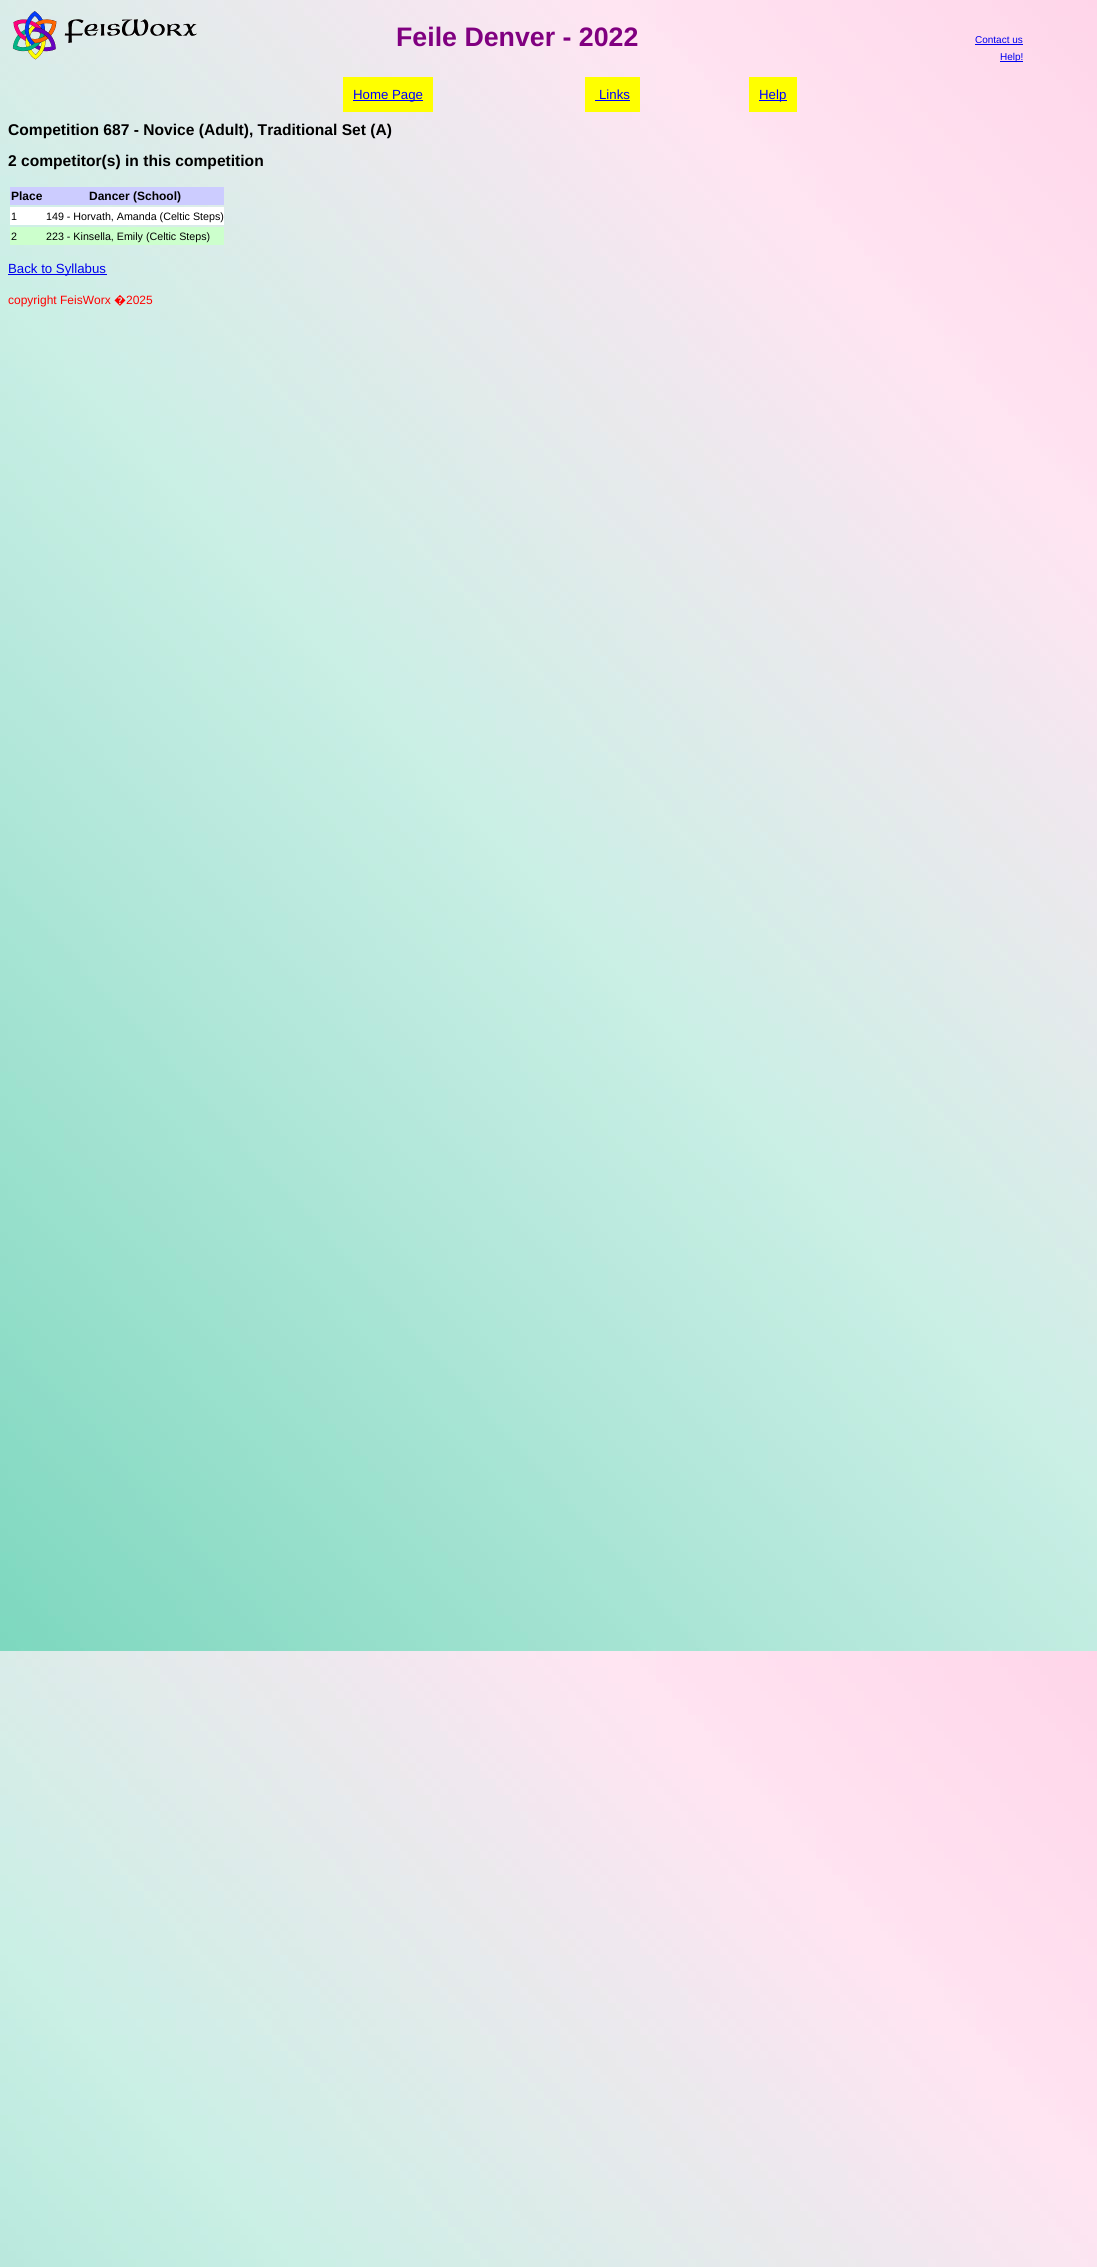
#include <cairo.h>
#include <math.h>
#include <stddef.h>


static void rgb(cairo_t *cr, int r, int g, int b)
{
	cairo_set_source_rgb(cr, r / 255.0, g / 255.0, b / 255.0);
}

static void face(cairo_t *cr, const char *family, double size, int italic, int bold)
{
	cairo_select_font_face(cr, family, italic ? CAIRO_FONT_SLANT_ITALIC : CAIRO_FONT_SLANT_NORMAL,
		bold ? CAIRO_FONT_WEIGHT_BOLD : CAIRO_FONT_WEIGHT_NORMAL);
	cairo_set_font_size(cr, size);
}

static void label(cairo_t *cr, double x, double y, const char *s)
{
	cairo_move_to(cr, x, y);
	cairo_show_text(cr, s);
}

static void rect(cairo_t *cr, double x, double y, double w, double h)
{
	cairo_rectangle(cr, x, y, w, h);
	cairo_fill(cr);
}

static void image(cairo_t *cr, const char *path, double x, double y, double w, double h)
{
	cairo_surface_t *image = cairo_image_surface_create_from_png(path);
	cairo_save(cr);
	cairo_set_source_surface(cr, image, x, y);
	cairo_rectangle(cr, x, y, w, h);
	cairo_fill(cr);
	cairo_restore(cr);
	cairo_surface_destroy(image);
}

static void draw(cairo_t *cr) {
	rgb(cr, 255, 255, 255);
	cairo_paint(cr);
	image(cr, "image0.png", 0, 0, 1097, 2267);
	image(cr, "image1.png", 12, 11, 185, 49);
	face(cr, "Liberation Sans", 26.75, 0, 1);
	rgb(cr, 128, 0, 128);
	label(cr, 396, 46, "Feile Denver - 2022");
	face(cr, "Liberation Sans", 10, 0, 0);
	rgb(cr, 0, 0, 238);
	label(cr, 975, 43, "Contact us");
	rect(cr, 975, 44, 48, 1);
	rect(cr, 1000, 61, 23, 1);
	label(cr, 1000, 60, "Help!");
	rgb(cr, 255, 255, 0);
	rect(cr, 343, 77, 90, 35);
	rgb(cr, 0, 0, 255);
	rect(cr, 353, 100, 70, 1);
	face(cr, "Liberation Sans", 13.25, 0, 0);
	label(cr, 353, 99, "Home Page");
	rgb(cr, 255, 255, 0);
	rect(cr, 585, 77, 55, 35);
	rgb(cr, 0, 0, 255);
	label(cr, 599, 99, "Links");
	rect(cr, 595, 100, 35, 1);
	rgb(cr, 255, 255, 0);
	rect(cr, 749, 77, 48, 35);
	rgb(cr, 0, 0, 255);
	rect(cr, 759, 100, 28, 1);
	label(cr, 759, 99, "Help");
	face(cr, "Liberation Sans", 15.6, 0, 1);
	rgb(cr, 0, 0, 0);
	label(cr, 8, 135, "Competition 687 - Novice (Adult), Traditional Set (A)");
	label(cr, 8, 166, "2 competitor(s) in this competition");
	rgb(cr, 204, 204, 255);
	rect(cr, 10, 187, 214, 18);
	face(cr, "Liberation Sans", 12, 0, 1);
	rgb(cr, 0, 0, 0);
	label(cr, 11, 200, "Place");
	label(cr, 89, 200, "Dancer (School)");
	rgb(cr, 255, 255, 255);
	rect(cr, 10, 207, 214, 18);
	face(cr, "Liberation Sans", 10.7, 0, 0);
	rgb(cr, 0, 0, 0);
	label(cr, 11, 220, "1");
	label(cr, 46, 220, "149 - Horvath, Amanda (Celtic Steps)");
	rgb(cr, 204, 255, 204);
	rect(cr, 10, 227, 214, 18);
	rgb(cr, 0, 0, 0);
	label(cr, 11, 240, "2");
	label(cr, 46, 240, "223 - Kinsella, Emily (Celtic Steps)");
	rgb(cr, 0, 0, 238);
	rect(cr, 8, 274, 99, 1);
	face(cr, "Liberation Sans", 13.25, 0, 0);
	label(cr, 8, 273, "Back to Syllabus");
	face(cr, "Liberation Sans", 12, 0, 0);
	rgb(cr, 255, 0, 0);
	label(cr, 8, 304, "copyright FeisWorx");
	face(cr, "Noto Sans", 12, 0, 0);
	label(cr, 114, 304, "�");
	face(cr, "Liberation Sans", 12, 0, 0);
	label(cr, 126, 304, "2025");
}

int main(void) {
	cairo_surface_t *surface = cairo_image_surface_create(CAIRO_FORMAT_RGB24, 1097, 2267);
	cairo_t *cr = cairo_create(surface);
	cairo_font_options_t *options = cairo_font_options_create();
	cairo_font_options_set_hint_metrics(options, CAIRO_HINT_METRICS_OFF);
	cairo_font_options_set_hint_style(options, CAIRO_HINT_STYLE_NONE);
	cairo_set_font_options(cr, options);
	cairo_set_miter_limit(cr, 4);
	draw(cr);
	cairo_surface_write_to_png(surface, "render.png");
	cairo_font_options_destroy(options);
	cairo_destroy(cr);
	cairo_surface_destroy(surface);
	return 0;
}
